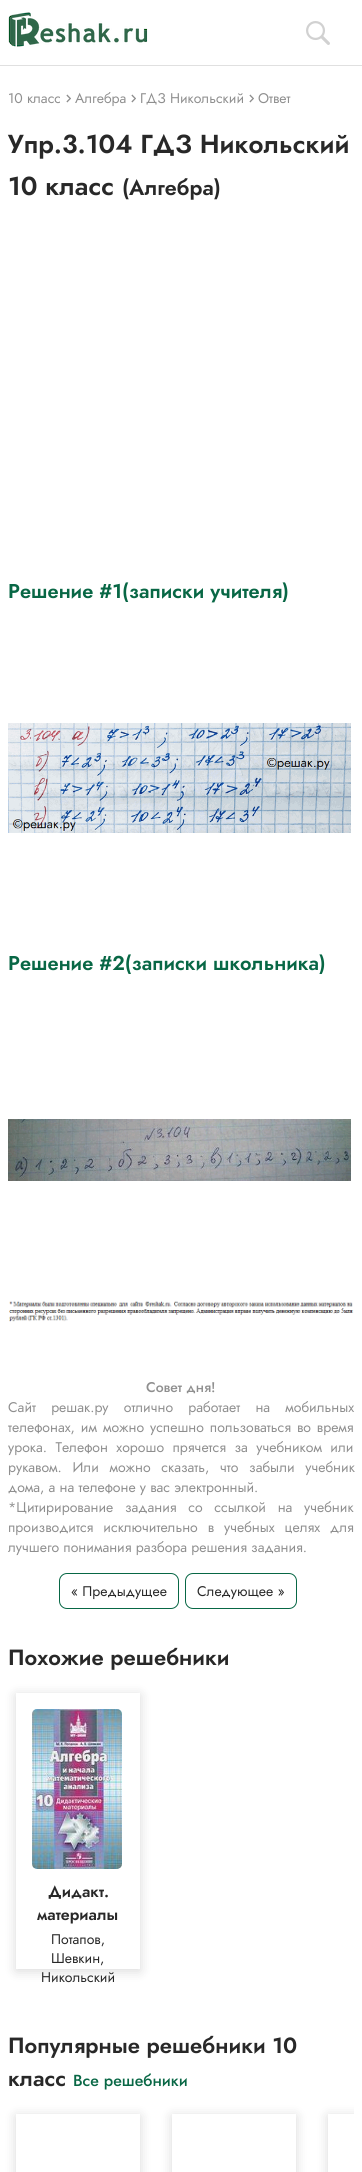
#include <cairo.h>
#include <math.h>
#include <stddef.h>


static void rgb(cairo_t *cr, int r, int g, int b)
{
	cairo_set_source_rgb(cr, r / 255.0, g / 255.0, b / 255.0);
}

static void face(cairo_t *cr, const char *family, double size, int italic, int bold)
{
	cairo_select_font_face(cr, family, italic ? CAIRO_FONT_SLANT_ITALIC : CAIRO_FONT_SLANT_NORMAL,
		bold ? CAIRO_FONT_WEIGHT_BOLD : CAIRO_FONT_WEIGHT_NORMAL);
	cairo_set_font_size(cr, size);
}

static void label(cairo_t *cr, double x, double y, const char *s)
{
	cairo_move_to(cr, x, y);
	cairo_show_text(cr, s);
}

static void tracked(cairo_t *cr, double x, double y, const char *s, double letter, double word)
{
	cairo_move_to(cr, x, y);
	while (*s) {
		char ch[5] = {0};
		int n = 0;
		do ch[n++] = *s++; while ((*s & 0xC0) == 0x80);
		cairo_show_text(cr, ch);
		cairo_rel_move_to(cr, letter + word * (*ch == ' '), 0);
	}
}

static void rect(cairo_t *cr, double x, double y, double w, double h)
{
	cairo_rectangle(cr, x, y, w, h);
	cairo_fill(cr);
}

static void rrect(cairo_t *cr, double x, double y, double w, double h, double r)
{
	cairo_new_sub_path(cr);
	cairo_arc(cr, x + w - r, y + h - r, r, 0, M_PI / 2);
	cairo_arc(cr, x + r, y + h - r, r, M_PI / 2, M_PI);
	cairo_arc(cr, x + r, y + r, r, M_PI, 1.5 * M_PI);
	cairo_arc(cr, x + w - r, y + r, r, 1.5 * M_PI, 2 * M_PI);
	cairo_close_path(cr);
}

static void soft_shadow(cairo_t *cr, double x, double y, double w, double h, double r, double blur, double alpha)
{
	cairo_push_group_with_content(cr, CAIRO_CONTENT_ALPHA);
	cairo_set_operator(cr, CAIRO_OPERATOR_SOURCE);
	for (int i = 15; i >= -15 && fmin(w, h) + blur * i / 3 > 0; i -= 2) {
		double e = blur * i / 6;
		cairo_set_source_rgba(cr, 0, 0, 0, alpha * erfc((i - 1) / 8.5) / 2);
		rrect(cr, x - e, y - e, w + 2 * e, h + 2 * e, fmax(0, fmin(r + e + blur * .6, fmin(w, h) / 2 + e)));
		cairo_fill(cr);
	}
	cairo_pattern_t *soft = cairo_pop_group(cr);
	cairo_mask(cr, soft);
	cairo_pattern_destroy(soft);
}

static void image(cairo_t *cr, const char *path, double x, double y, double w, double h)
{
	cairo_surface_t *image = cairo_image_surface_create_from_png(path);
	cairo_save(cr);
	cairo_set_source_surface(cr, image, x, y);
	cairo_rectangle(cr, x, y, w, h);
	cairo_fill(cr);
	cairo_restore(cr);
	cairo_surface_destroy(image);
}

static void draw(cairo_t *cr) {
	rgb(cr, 255, 255, 255);
	cairo_paint(cr);
	rgb(cr, 224, 224, 224);
	rect(cr, 0, 65, 362, 1);
	image(cr, "image0.png", 8, 12, 140, 35);
	image(cr, "image1.png", 306, 21, 24, 24);
	face(cr, "Jost", 14, 0, 0);
	rgb(cr, 143, 143, 143);
	label(cr, 8, 103, "10 класс");
	image(cr, "image2.png", 66, 94, 5, 9);
	label(cr, 75, 103, "Алгебра");
	image(cr, "image2.png", 131, 94, 5, 9);
	label(cr, 140, 103, "ГДЗ Никольский");
	image(cr, "image2.png", 249, 94, 5, 9);
	label(cr, 258, 103, "Ответ");
	face(cr, "Jost SemiBold", 26, 0, 0);
	rgb(cr, 40, 40, 40);
	label(cr, 8, 153, "Упр.3.104 ГДЗ Никольский");
	label(cr, 8, 195, "10 класс");
	face(cr, "Jost SemiBold", 21.5, 0, 0);
	label(cr, 122, 195, "(Алгебра)");
	face(cr, "Jost SemiBold", 20, 0, 0);
	rgb(cr, 8, 103, 69);
	label(cr, 8, 598, "Решение #1(записки учителя)");
	image(cr, "image3.png", 8, 723, 343, 110);
	label(cr, 8, 970, "Решение #2(записки школьника)");
	image(cr, "image4.png", 8, 1119, 343, 62);
	image(cr, "image5.png", 9, 1301, 345, 21);
	face(cr, "Jost Medium", 14, 0, 0);
	rgb(cr, 143, 143, 143);
	label(cr, 146, 1392, "Совет дня!");
	face(cr, "Jost", 14, 0, 0);
	tracked(cr, 8, 1412, "Сайт решак.ру отлично работает на мобильных", 0, 11);
	tracked(cr, 8, 1432, "телефонах, им можно успешно пользоваться во время", 0, 1.75);
	tracked(cr, 8, 1452, "урока. Телефон хорошо прячется за учебником или", 0, 4.25);
	tracked(cr, 8, 1472, "рукавом. Или можно сказать, что забыли учебник", 0, 6.5);
	label(cr, 8, 1492, "дома, а на телефоне у вас электронный.");
	tracked(cr, 8, 1512, "*Цитирирование задания со ссылкой на учебник", 0, 7.5);
	tracked(cr, 8, 1532, "производится исключительно в учебных целях для", 0, 5.75);
	label(cr, 8, 1552, "лучшего понимания разбора решения задания.");
	rrect(cr, 59.5, 1573.5, 119, 35, 7.5);
	rgb(cr, 8, 103, 69);
	cairo_set_line_width(cr, 1);
	cairo_stroke(cr);
	rgb(cr, 40, 40, 40);
	label(cr, 71, 1596, "« Предыдущее");
	rrect(cr, 185.5, 1573.5, 111, 35, 7.5);
	rgb(cr, 8, 103, 69);
	cairo_stroke(cr);
	rgb(cr, 40, 40, 40);
	label(cr, 197, 1596, "Следующее »");
	face(cr, "Jost SemiBold", 22, 0, 0);
	label(cr, 8, 1665, "Похожие решебники");
	cairo_save(cr);
	cairo_set_fill_rule(cr, CAIRO_FILL_RULE_EVEN_ODD);
	cairo_new_path(cr);
	cairo_move_to(cr, 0, 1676);
	cairo_line_to(cr, 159, 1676);
	cairo_line_to(cr, 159, 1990);
	cairo_line_to(cr, 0, 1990);
	cairo_close_path(cr);
	cairo_move_to(cr, 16, 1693);
	cairo_line_to(cr, 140, 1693);
	cairo_line_to(cr, 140, 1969);
	cairo_line_to(cr, 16, 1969);
	cairo_close_path(cr);
	cairo_clip(cr);
	rgb(cr, 0, 0, 0);
	soft_shadow(cr, 16, 1695, 124, 276, 0, 6, 0.15);
	cairo_restore(cr);
	image(cr, "image6.png", 32, 1709, 90, 160);
	rrect(cr, 33.5, 1710.5, 87, 157, 3.5);
	cairo_set_source_rgba(cr, 0.502, 0.502, 0.502, 0.15);
	cairo_stroke(cr);
	face(cr, "Jost SemiBold", 16, 0, 0);
	rgb(cr, 40, 40, 40);
	label(cr, 48, 1897, "Дидакт.");
	label(cr, 37, 1920, "материалы");
	face(cr, "Jost", 14, 0, 0);
	label(cr, 51, 1944, "Потапов,");
	label(cr, 51, 1963, "Шевкин,");
	label(cr, 41, 1982, "Никольский");
	face(cr, "Jost SemiBold", 22, 0, 0);
	label(cr, 8, 2053, "Популярные решебники 10");
	label(cr, 8, 2086, "класс");
	face(cr, "Jost Medium", 16, 0, 0);
	rgb(cr, 8, 103, 69);
	label(cr, 73, 2086, "Все решебники");
	cairo_save(cr);
	cairo_set_fill_rule(cr, CAIRO_FILL_RULE_EVEN_ODD);
	cairo_new_path(cr);
	cairo_move_to(cr, 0, 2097);
	cairo_line_to(cr, 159, 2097);
	cairo_line_to(cr, 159, 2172);
	cairo_line_to(cr, 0, 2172);
	cairo_close_path(cr);
	cairo_move_to(cr, 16, 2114);
	cairo_line_to(cr, 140, 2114);
	cairo_line_to(cr, 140, 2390);
	cairo_line_to(cr, 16, 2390);
	cairo_close_path(cr);
	cairo_clip(cr);
	rgb(cr, 0, 0, 0);
	soft_shadow(cr, 16, 2116, 124, 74, 0, 6, 0.15);
	cairo_restore(cr);
	cairo_save(cr);
	cairo_set_fill_rule(cr, CAIRO_FILL_RULE_EVEN_ODD);
	cairo_new_path(cr);
	cairo_move_to(cr, 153, 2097);
	cairo_line_to(cr, 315, 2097);
	cairo_line_to(cr, 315, 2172);
	cairo_line_to(cr, 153, 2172);
	cairo_close_path(cr);
	cairo_move_to(cr, 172, 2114);
	cairo_line_to(cr, 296, 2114);
	cairo_line_to(cr, 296, 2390);
	cairo_line_to(cr, 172, 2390);
	cairo_close_path(cr);
	cairo_clip(cr);
	rgb(cr, 0, 0, 0);
	soft_shadow(cr, 172, 2116, 124, 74, 0, 6, 0.15);
	cairo_restore(cr);
	cairo_save(cr);
	cairo_rectangle(cr, 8, 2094, 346, 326);
	cairo_clip(cr);
	cairo_set_fill_rule(cr, CAIRO_FILL_RULE_EVEN_ODD);
	cairo_new_path(cr);
	cairo_move_to(cr, 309, 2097);
	cairo_line_to(cr, 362, 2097);
	cairo_line_to(cr, 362, 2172);
	cairo_line_to(cr, 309, 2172);
	cairo_close_path(cr);
	cairo_move_to(cr, 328, 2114);
	cairo_line_to(cr, 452, 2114);
	cairo_line_to(cr, 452, 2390);
	cairo_line_to(cr, 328, 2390);
	cairo_close_path(cr);
	cairo_clip(cr);
	rgb(cr, 0, 0, 0);
	soft_shadow(cr, 328, 2116, 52, 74, 0, 6, 0.15);
	cairo_restore(cr);
}

int main(void) {
	cairo_surface_t *surface = cairo_image_surface_create(CAIRO_FORMAT_RGB24, 362, 2172);
	cairo_t *cr = cairo_create(surface);
	cairo_font_options_t *options = cairo_font_options_create();
	cairo_font_options_set_hint_metrics(options, CAIRO_HINT_METRICS_OFF);
	cairo_font_options_set_hint_style(options, CAIRO_HINT_STYLE_NONE);
	cairo_set_font_options(cr, options);
	cairo_set_miter_limit(cr, 4);
	draw(cr);
	cairo_surface_write_to_png(surface, "render.png");
	cairo_font_options_destroy(options);
	cairo_destroy(cr);
	cairo_surface_destroy(surface);
	return 0;
}
